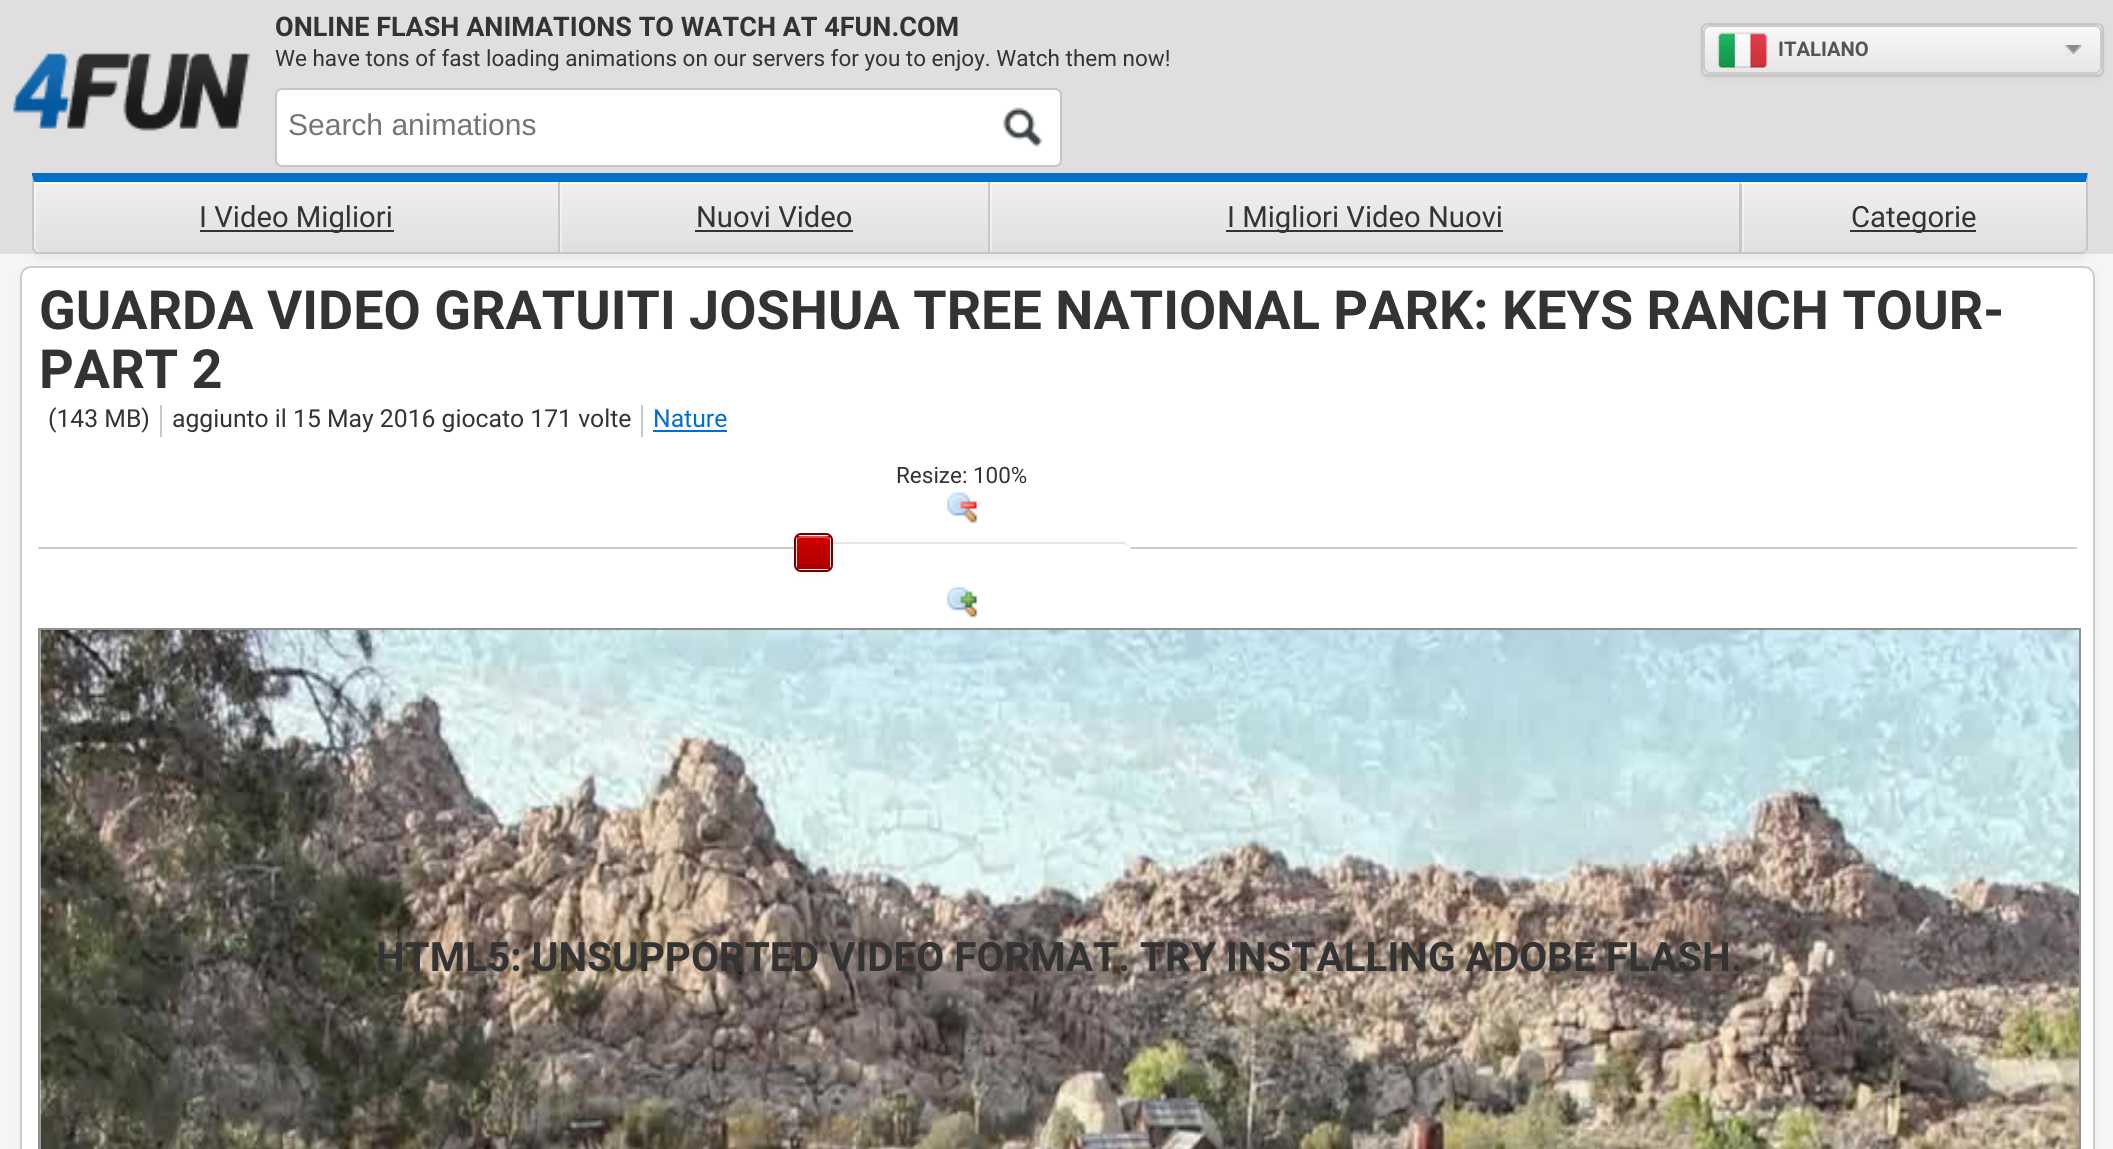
#include <cairo.h>
#include <math.h>
#include <stddef.h>


static void rgb(cairo_t *cr, int r, int g, int b)
{
	cairo_set_source_rgb(cr, r / 255.0, g / 255.0, b / 255.0);
}

static void face(cairo_t *cr, const char *family, double size, int italic, int bold)
{
	cairo_select_font_face(cr, family, italic ? CAIRO_FONT_SLANT_ITALIC : CAIRO_FONT_SLANT_NORMAL,
		bold ? CAIRO_FONT_WEIGHT_BOLD : CAIRO_FONT_WEIGHT_NORMAL);
	cairo_set_font_size(cr, size);
}

static void label(cairo_t *cr, double x, double y, const char *s)
{
	cairo_move_to(cr, x, y);
	cairo_show_text(cr, s);
}

static void rect(cairo_t *cr, double x, double y, double w, double h)
{
	cairo_rectangle(cr, x, y, w, h);
	cairo_fill(cr);
}

static void rrect(cairo_t *cr, double x, double y, double w, double h, double r)
{
	cairo_new_sub_path(cr);
	cairo_arc(cr, x + w - r, y + h - r, r, 0, M_PI / 2);
	cairo_arc(cr, x + r, y + h - r, r, M_PI / 2, M_PI);
	cairo_arc(cr, x + r, y + r, r, M_PI, 1.5 * M_PI);
	cairo_arc(cr, x + w - r, y + r, r, 1.5 * M_PI, 2 * M_PI);
	cairo_close_path(cr);
}

static void soft_shadow(cairo_t *cr, double x, double y, double w, double h, double r, double blur, double alpha)
{
	cairo_push_group_with_content(cr, CAIRO_CONTENT_ALPHA);
	cairo_set_operator(cr, CAIRO_OPERATOR_SOURCE);
	for (int i = 15; i >= -15 && fmin(w, h) + blur * i / 3 > 0; i -= 2) {
		double e = blur * i / 6;
		cairo_set_source_rgba(cr, 0, 0, 0, alpha * erfc((i - 1) / 8.5) / 2);
		rrect(cr, x - e, y - e, w + 2 * e, h + 2 * e, fmax(0, fmin(r + e + blur * .6, fmin(w, h) / 2 + e)));
		cairo_fill(cr);
	}
	cairo_pattern_t *soft = cairo_pop_group(cr);
	cairo_mask(cr, soft);
	cairo_pattern_destroy(soft);
}

static void image(cairo_t *cr, const char *path, double x, double y, double w, double h)
{
	cairo_surface_t *image = cairo_image_surface_create_from_png(path);
	cairo_save(cr);
	cairo_set_source_surface(cr, image, x, y);
	cairo_rectangle(cr, x, y, w, h);
	cairo_fill(cr);
	cairo_restore(cr);
	cairo_surface_destroy(image);
}

static void draw(cairo_t *cr) {
	cairo_pattern_t *gradient;
	rgb(cr, 245, 245, 245);
	cairo_paint(cr);
	rgb(cr, 224, 222, 222);
	rect(cr, 0, 0, 2113, 254);
	image(cr, "image0.png", 13, 53, 238, 79);
	face(cr, "Roboto", 27, 0, 1);
	rgb(cr, 51, 51, 51);
	label(cr, 275, 36, "ONLINE FLASH ANIMATIONS TO WATCH AT 4FUN.COM");
	face(cr, "Roboto", 22.5, 0, 0);
	label(cr, 275, 66, "We have tons of fast loading animations on our servers for you to enjoy. Watch them now!");
	rgb(cr, 0, 0, 0);
	soft_shadow(cr, 1701, 25, 403, 54, 7, 2, 0.05);
	rgb(cr, 204, 204, 204);
	rrect(cr, 1701, 23, 403, 54, 7);
	cairo_fill(cr);
	gradient = cairo_pattern_create_linear(1902, 25, 1902, 74);
	cairo_pattern_add_color_stop_rgba(gradient, 0, 0.976, 0.976, 0.976, 1);
	cairo_pattern_add_color_stop_rgba(gradient, 1, 0.898, 0.898, 0.898, 1);
	cairo_set_source(cr, gradient);
	cairo_pattern_destroy(gradient);
	rect(cr, 1703, 25, 399, 49);
	rrect(cr, 1702, 24, 401, 52, 6);
	rgb(cr, 198, 198, 198);
	cairo_stroke(cr);
	rrect(cr, 1704, 26, 397, 47, 6);
	rgb(cr, 204, 204, 204);
	cairo_stroke(cr);
	image(cr, "image1.png", 2065, 45, 17, 11);
	image(cr, "image2.png", 1717, 32, 51, 36);
	face(cr, "Roboto", 20.25, 0, 1);
	rgb(cr, 85, 85, 85);
	label(cr, 1778, 56, "ITALIANO");
	rgb(cr, 224, 222, 222);
	soft_shadow(cr, 20, 270, 2075, 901, 11, 3.5, 0.5);
	rgb(cr, 255, 255, 255);
	rrect(cr, 21, 267, 2073, 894, 10);
	cairo_fill_preserve(cr);
	rgb(cr, 204, 204, 204);
	cairo_stroke(cr);
	rgb(cr, 224, 222, 222);
	soft_shadow(cr, 32, 178, 2056, 81, 7, 3.5, 0.5);
	rgb(cr, 255, 255, 255);
	rrect(cr, 276, 89, 785, 77, 6);
	cairo_fill_preserve(cr);
	rgb(cr, 199, 197, 197);
	cairo_stroke(cr);
	face(cr, "Liberation Sans", 30, 0, 0);
	rgb(cr, 117, 117, 117);
	label(cr, 288, 135, "Search animations");
	image(cr, "image3.png", 1003, 107, 40, 40);
	rgb(cr, 0, 112, 204);
	cairo_new_path(cr);
	cairo_move_to(cr, 34, 182);
	cairo_line_to(cr, 34, 183);
	cairo_line_to(cr, 32, 175);
	cairo_line_to(cr, 32, 173);
	cairo_line_to(cr, 2088, 173);
	cairo_line_to(cr, 2086, 182);
	cairo_close_path(cr);
	cairo_fill(cr);
	rgb(cr, 199, 197, 197);
	cairo_new_path(cr);
	cairo_move_to(cr, 2088, 173);
	cairo_line_to(cr, 2086, 182);
	cairo_line_to(cr, 2086, 248);
	cairo_line_to(cr, 2085, 251);
	cairo_line_to(cr, 2086, 252);
	cairo_curve_to(cr, 2087, 251, 2088, 250, 2088, 248);
	cairo_close_path(cr);
	cairo_fill(cr);
	cairo_new_path(cr);
	cairo_move_to(cr, 2086, 252);
	cairo_curve_to(cr, 2085, 253, 2083, 254, 2081, 254);
	cairo_line_to(cr, 38, 254);
	cairo_curve_to(cr, 36, 254, 35, 253, 34, 252);
	cairo_line_to(cr, 35, 251);
	cairo_line_to(cr, 38, 252);
	cairo_line_to(cr, 2081, 252);
	cairo_line_to(cr, 2085, 251);
	cairo_close_path(cr);
	cairo_fill(cr);
	cairo_new_path(cr);
	cairo_move_to(cr, 34, 252);
	cairo_curve_to(cr, 33, 251, 32, 249, 32, 248);
	cairo_line_to(cr, 32, 175);
	cairo_line_to(cr, 34, 183);
	cairo_line_to(cr, 34, 248);
	cairo_line_to(cr, 35, 251);
	cairo_close_path(cr);
	cairo_fill(cr);
	gradient = cairo_pattern_create_linear(296, 182, 296, 252);
	cairo_pattern_add_color_stop_rgba(gradient, 0, 0.949, 0.937, 0.937, 1);
	cairo_pattern_add_color_stop_rgba(gradient, 1, 0.882, 0.871, 0.871, 1);
	cairo_set_source(cr, gradient);
	cairo_pattern_destroy(gradient);
	cairo_new_path(cr);
	cairo_move_to(cr, 34, 182);
	cairo_line_to(cr, 558, 182);
	cairo_line_to(cr, 558, 252);
	cairo_line_to(cr, 41, 252);
	cairo_curve_to(cr, 37, 252, 34, 249, 34, 245);
	cairo_close_path(cr);
	cairo_fill(cr);
	cairo_set_source_rgba(cr, 1, 1, 1, 0.4);
	cairo_new_path(cr);
	cairo_move_to(cr, 34, 185);
	cairo_line_to(cr, 34, 245);
	cairo_curve_to(cr, 34, 249, 37, 252, 41, 252);
	cairo_line_to(cr, 43, 252);
	cairo_curve_to(cr, 39, 252, 36, 249, 36, 245);
	cairo_line_to(cr, 36, 185);
	cairo_close_path(cr);
	cairo_fill(cr);
	rgb(cr, 255, 255, 255);
	rect(cr, 34, 182, 1705, 2);
	rgb(cr, 51, 51, 51);
	rect(cr, 200, 230, 194, 2);
	face(cr, "Roboto", 29.25, 0, 0);
	label(cr, 199, 227, "I Video Migliori");
	gradient = cairo_pattern_create_linear(773, 182, 773, 252);
	cairo_pattern_add_color_stop_rgba(gradient, 0, 0.949, 0.937, 0.937, 1);
	cairo_pattern_add_color_stop_rgba(gradient, 1, 0.882, 0.871, 0.871, 1);
	cairo_set_source(cr, gradient);
	cairo_pattern_destroy(gradient);
	rect(cr, 560, 184, 428, 62);
	gradient = cairo_pattern_create_linear(773, 182, 773, 252);
	cairo_pattern_add_color_stop_rgba(gradient, 0, 0.969, 0.961, 0.961, 1);
	cairo_pattern_add_color_stop_rgba(gradient, 1, 0.929, 0.922, 0.922, 1);
	cairo_set_source(cr, gradient);
	cairo_pattern_destroy(gradient);
	rect(cr, 560, 185, 2, 67);
	rgb(cr, 200, 198, 198);
	rect(cr, 558, 182, 2, 70);
	rgb(cr, 51, 51, 51);
	label(cr, 696, 227, "Nuovi Video");
	rect(cr, 695, 230, 158, 2);
	gradient = cairo_pattern_create_linear(1364, 182, 1364, 252);
	cairo_pattern_add_color_stop_rgba(gradient, 0, 0.949, 0.937, 0.937, 1);
	cairo_pattern_add_color_stop_rgba(gradient, 1, 0.882, 0.871, 0.871, 1);
	cairo_set_source(cr, gradient);
	cairo_pattern_destroy(gradient);
	rect(cr, 990, 184, 749, 62);
	gradient = cairo_pattern_create_linear(1364, 182, 1364, 252);
	cairo_pattern_add_color_stop_rgba(gradient, 0, 0.969, 0.961, 0.961, 1);
	cairo_pattern_add_color_stop_rgba(gradient, 1, 0.929, 0.922, 0.922, 1);
	cairo_set_source(cr, gradient);
	cairo_pattern_destroy(gradient);
	rect(cr, 990, 185, 2, 67);
	rgb(cr, 200, 198, 198);
	rect(cr, 988, 182, 2, 70);
	rgb(cr, 51, 51, 51);
	rect(cr, 1226, 230, 277, 2);
	label(cr, 1227, 227, "I Migliori Video Nuovi");
	gradient = cairo_pattern_create_linear(1913, 182, 1913, 252);
	cairo_pattern_add_color_stop_rgba(gradient, 0, 0.949, 0.937, 0.937, 1);
	cairo_pattern_add_color_stop_rgba(gradient, 1, 0.882, 0.871, 0.871, 1);
	cairo_set_source(cr, gradient);
	cairo_pattern_destroy(gradient);
	cairo_new_path(cr);
	cairo_move_to(cr, 1739, 182);
	cairo_line_to(cr, 2086, 182);
	cairo_line_to(cr, 2086, 245);
	cairo_curve_to(cr, 2086, 249, 2083, 252, 2079, 252);
	cairo_line_to(cr, 1739, 252);
	cairo_close_path(cr);
	cairo_fill(cr);
	gradient = cairo_pattern_create_linear(1913, 182, 1913, 252);
	cairo_pattern_add_color_stop_rgba(gradient, 0, 0.969, 0.961, 0.961, 1);
	cairo_pattern_add_color_stop_rgba(gradient, 1, 0.929, 0.922, 0.922, 1);
	cairo_set_source(cr, gradient);
	cairo_pattern_destroy(gradient);
	rect(cr, 1742, 185, 2, 67);
	rgb(cr, 255, 255, 255);
	cairo_new_path(cr);
	cairo_move_to(cr, 1742, 184);
	cairo_line_to(cr, 1742, 185);
	cairo_line_to(cr, 1739, 182);
	cairo_line_to(cr, 2086, 182);
	cairo_line_to(cr, 2086, 184);
	cairo_close_path(cr);
	cairo_fill(cr);
	rgb(cr, 200, 198, 198);
	cairo_new_path(cr);
	cairo_move_to(cr, 1739, 252);
	cairo_line_to(cr, 1742, 252);
	cairo_line_to(cr, 1742, 185);
	cairo_line_to(cr, 1739, 182);
	cairo_close_path(cr);
	cairo_fill(cr);
	rgb(cr, 51, 51, 51);
	rect(cr, 1850, 230, 126, 2);
	label(cr, 1851, 227, "Categorie");
	face(cr, "Roboto", 54, 0, 1);
	label(cr, 39, 329, "GUARDA VIDEO GRATUITI JOSHUA TREE NATIONAL PARK: KEYS RANCH TOUR-");
	label(cr, 39, 388, "PART 2");
	face(cr, "Roboto", 24.75, 0, 0);
	label(cr, 48, 427, "(143 MB)");
	label(cr, 172, 427, "aggiunto il 15 May 2016 giocato 171 volte");
	rgb(cr, 201, 201, 201);
	rect(cr, 160, 405, 2, 32);
	rgb(cr, 0, 112, 204);
	label(cr, 653, 427, "Nature");
	rgb(cr, 201, 201, 201);
	rect(cr, 641, 405, 2, 32);
	rgb(cr, 0, 112, 204);
	rect(cr, 653, 430, 74, 2);
	rgb(cr, 204, 204, 204);
	rect(cr, 38, 547, 2039, 2);
	face(cr, "Roboto", 22.5, 0, 0);
	rgb(cr, 51, 51, 51);
	label(cr, 896, 483, "Resize: 100%");
	image(cr, "image4.png", 946, 492, 32, 33);
	rgb(cr, 255, 255, 255);
	rrect(cr, 794, 542, 338, 23, 11.5);
	cairo_fill(cr);
	cairo_set_source_rgba(cr, 0, 0, 0, 0.1);
	cairo_new_path(cr);
	cairo_move_to(cr, 808, 544);
	cairo_line_to(cr, 1123, 544);
	cairo_curve_to(cr, 1126, 544, 1128, 545, 1130, 547);
	cairo_curve_to(cr, 1128, 544, 1125, 542, 1122, 542);
	cairo_line_to(cr, 806, 542);
	cairo_curve_to(cr, 794, 542, 790, 557, 799, 563);
	cairo_curve_to(cr, 792, 556, 799, 544, 808, 544);
	cairo_close_path(cr);
	cairo_fill(cr);
	rgb(cr, 0, 0, 0);
	soft_shadow(cr, 794, 536, 39, 38, 7, 2, 0.05);
	gradient = cairo_pattern_create_linear(813, 536, 813, 569);
	cairo_pattern_add_color_stop_rgba(gradient, 0, 0.831, 0, 0, 1);
	cairo_pattern_add_color_stop_rgba(gradient, 1, 0.671, 0, 0, 1);
	cairo_set_source(cr, gradient);
	cairo_pattern_destroy(gradient);
	rect(cr, 797, 536, 33, 33);
	cairo_set_source_rgba(cr, 1, 1, 1, 0.3);
	cairo_new_path(cr);
	cairo_move_to(cr, 801, 538);
	cairo_line_to(cr, 826, 538);
	cairo_curve_to(cr, 828, 538, 830, 540, 830, 542);
	cairo_line_to(cr, 830, 541);
	cairo_curve_to(cr, 830, 538, 828, 536, 825, 536);
	cairo_line_to(cr, 802, 536);
	cairo_curve_to(cr, 799.5, 536, 797.5, 537.5, 797, 540);
	cairo_curve_to(cr, 798, 538.5, 800, 538, 801, 538);
	cairo_close_path(cr);
	cairo_fill(cr);
	rrect(cr, 795, 534, 37, 37, 6);
	rgb(cr, 110, 0, 0);
	cairo_stroke(cr);
	image(cr, "image5.png", 946, 586, 32, 33);
	cairo_rectangle(cr, 39, 629, 2041, 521);
	rgb(cr, 144, 144, 144);
	cairo_stroke(cr);
	image(cr, "image6.png", 40, 630, 2039, 519);
	face(cr, "Roboto", 40.5, 0, 1);
	rgb(cr, 51, 51, 51);
	label(cr, 376, 971, "HTML5: UNSUPPORTED VIDEO FORMAT. TRY INSTALLING ADOBE FLASH.");
	face(cr, "Roboto", 28, 0, 0);
	rgb(cr, 102, 102, 102);
	label(cr, 966, 1052, ".");
}

int main(void) {
	cairo_surface_t *surface = cairo_image_surface_create(CAIRO_FORMAT_RGB24, 2113, 1149);
	cairo_t *cr = cairo_create(surface);
	cairo_font_options_t *options = cairo_font_options_create();
	cairo_font_options_set_hint_metrics(options, CAIRO_HINT_METRICS_OFF);
	cairo_font_options_set_hint_style(options, CAIRO_HINT_STYLE_NONE);
	cairo_set_font_options(cr, options);
	cairo_set_miter_limit(cr, 4);
	draw(cr);
	cairo_surface_write_to_png(surface, "render.png");
	cairo_font_options_destroy(options);
	cairo_destroy(cr);
	cairo_surface_destroy(surface);
	return 0;
}
